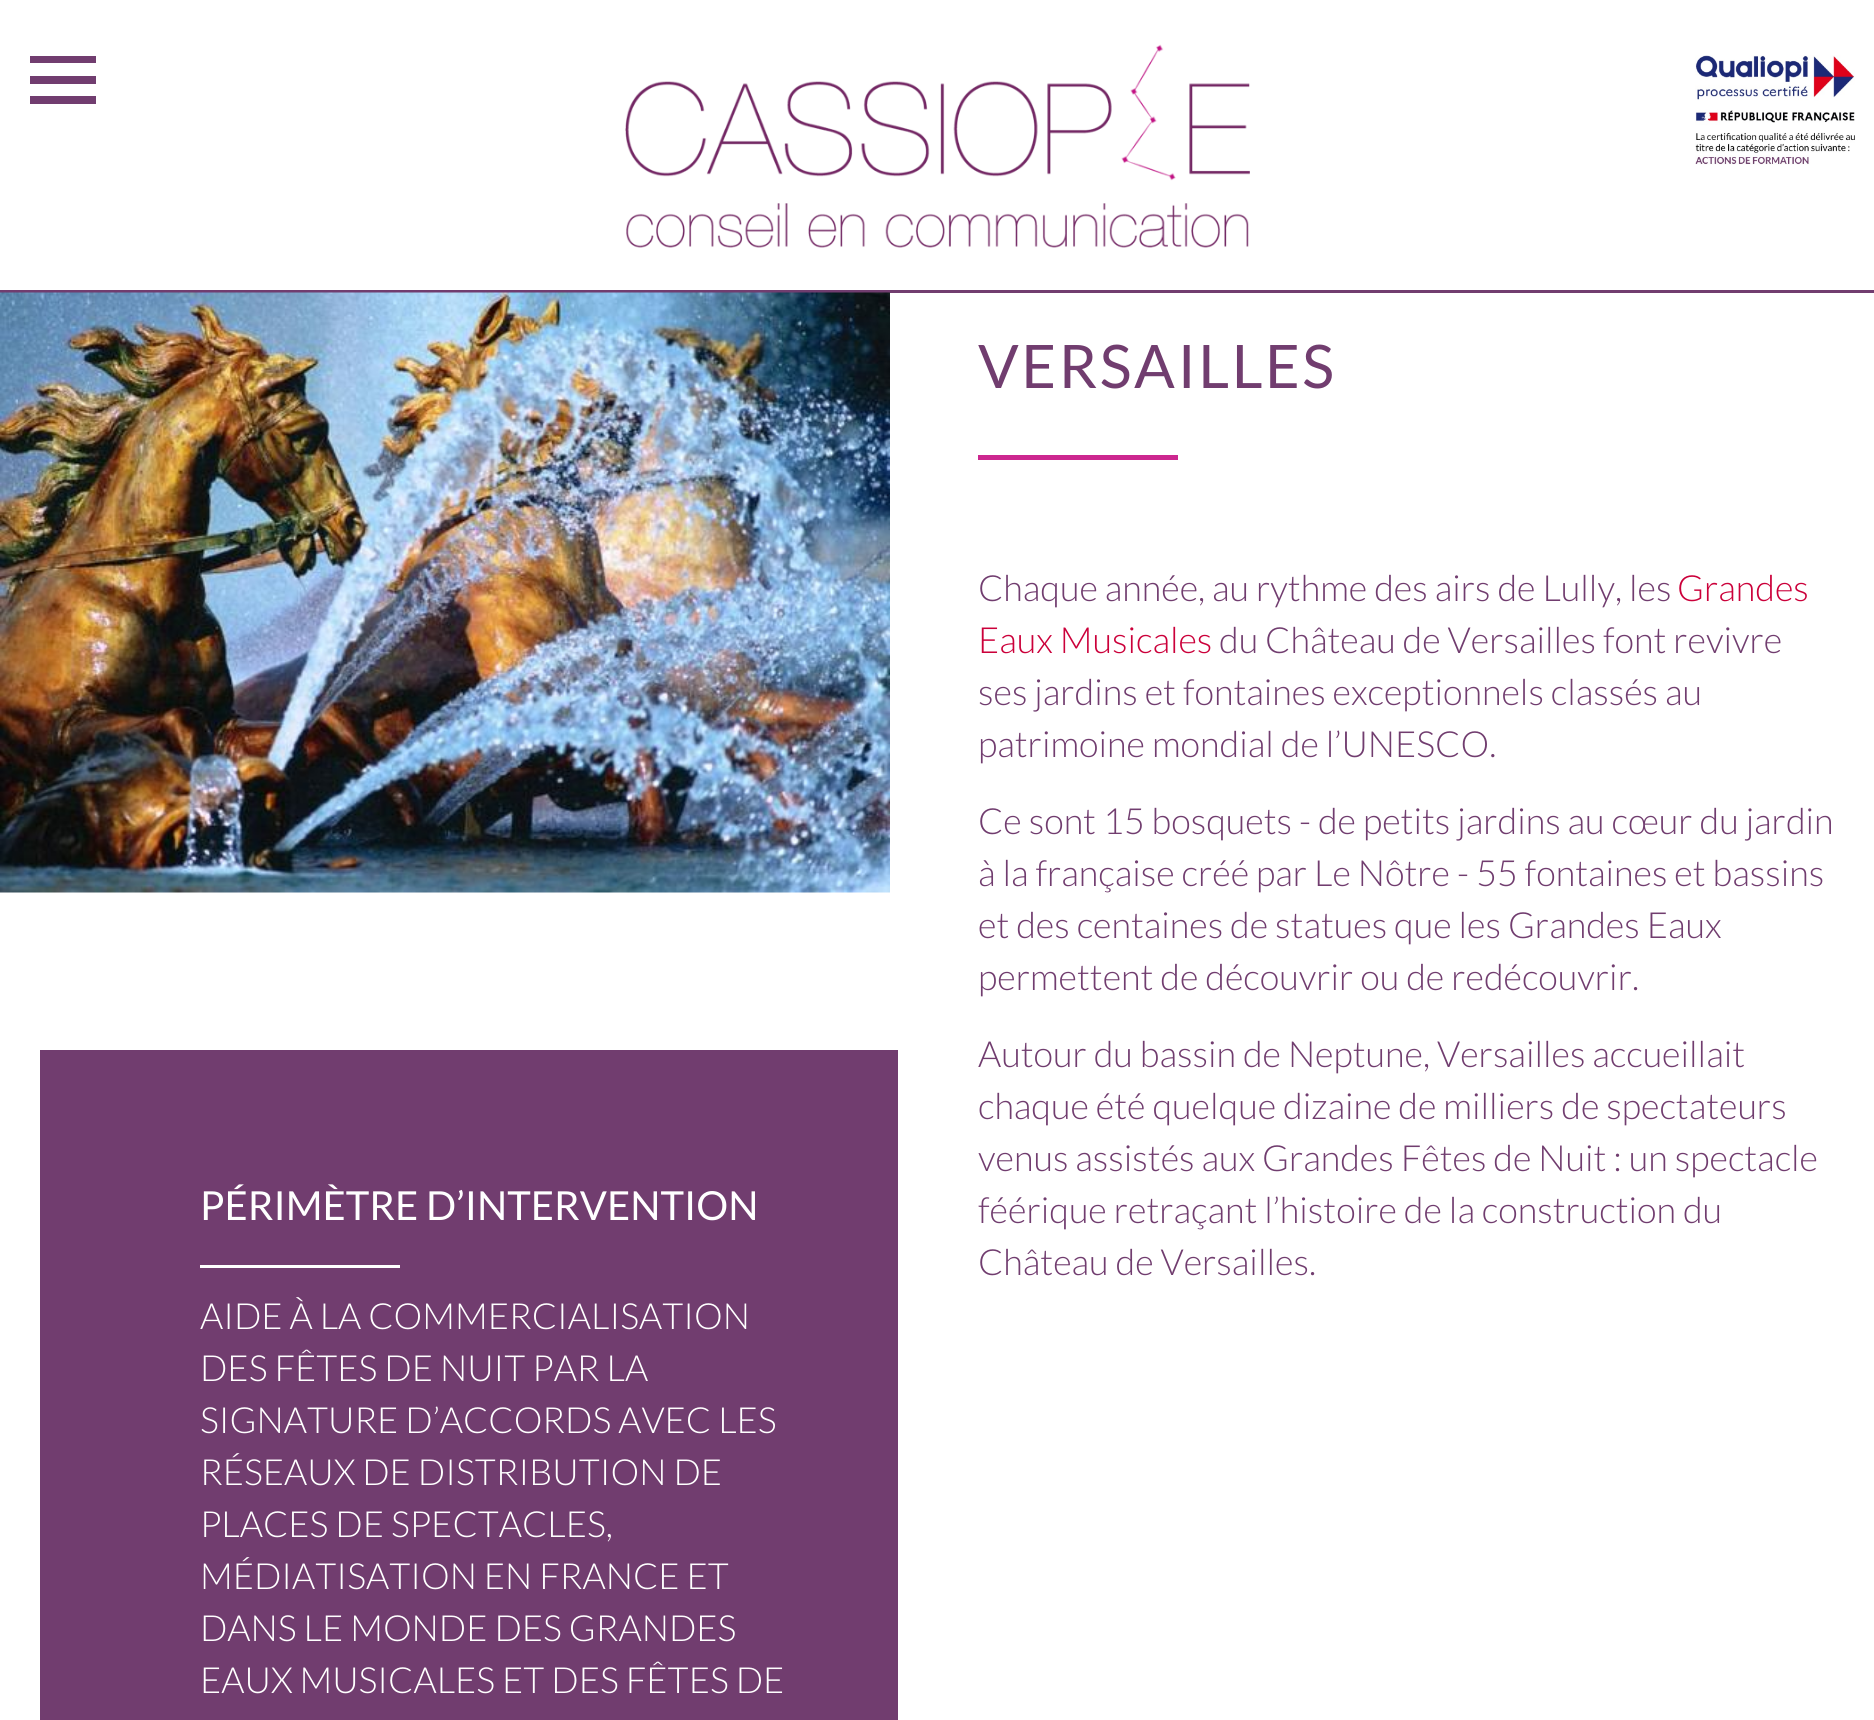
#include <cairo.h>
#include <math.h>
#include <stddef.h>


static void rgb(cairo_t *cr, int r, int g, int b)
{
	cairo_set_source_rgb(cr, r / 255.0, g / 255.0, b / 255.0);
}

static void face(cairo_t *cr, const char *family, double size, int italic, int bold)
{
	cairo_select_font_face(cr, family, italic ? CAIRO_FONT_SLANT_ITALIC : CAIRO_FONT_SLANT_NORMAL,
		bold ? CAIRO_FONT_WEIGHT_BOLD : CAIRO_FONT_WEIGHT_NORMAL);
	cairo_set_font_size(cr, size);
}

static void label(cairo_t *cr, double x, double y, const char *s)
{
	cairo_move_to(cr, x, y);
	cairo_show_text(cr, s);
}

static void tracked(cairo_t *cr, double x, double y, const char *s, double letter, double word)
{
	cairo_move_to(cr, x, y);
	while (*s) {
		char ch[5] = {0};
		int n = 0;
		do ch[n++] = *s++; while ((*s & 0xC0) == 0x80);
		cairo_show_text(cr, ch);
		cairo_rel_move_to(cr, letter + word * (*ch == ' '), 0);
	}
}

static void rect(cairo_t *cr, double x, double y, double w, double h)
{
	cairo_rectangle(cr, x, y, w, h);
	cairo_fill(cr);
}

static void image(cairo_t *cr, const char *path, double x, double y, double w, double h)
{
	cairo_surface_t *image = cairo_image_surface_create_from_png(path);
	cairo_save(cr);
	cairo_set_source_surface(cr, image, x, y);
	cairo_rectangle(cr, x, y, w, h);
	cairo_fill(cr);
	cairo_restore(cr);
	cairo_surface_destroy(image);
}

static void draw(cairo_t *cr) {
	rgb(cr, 255, 255, 255);
	cairo_paint(cr);
	rgb(cr, 113, 61, 111);
	rect(cr, 0, 290, 1874, 3);
	cairo_new_path(cr);
	cairo_move_to(cr, 30, 96);
	cairo_line_to(cr, 96, 96);
	cairo_line_to(cr, 96, 104);
	cairo_line_to(cr, 30, 104);
	cairo_close_path(cr);
	cairo_move_to(cr, 30, 76);
	cairo_line_to(cr, 96, 76);
	cairo_line_to(cr, 96, 84);
	cairo_line_to(cr, 30, 84);
	cairo_close_path(cr);
	cairo_move_to(cr, 30, 56);
	cairo_line_to(cr, 96, 56);
	cairo_line_to(cr, 96, 63);
	cairo_line_to(cr, 30, 63);
	cairo_close_path(cr);
	cairo_fill(cr);
	image(cr, "image0.png", 625, 44, 625, 204);
	image(cr, "image1.png", 1695, 55, 160, 110);
	image(cr, "image2.png", 0, 292, 890, 601);
	face(cr, "Lato", 60, 0, 0);
	tracked(cr, 978, 388, "VERSAILLES", 2.5, 0);
	rgb(cr, 204, 39, 143);
	rect(cr, 978, 455, 200, 5);
	face(cr, "Lato Light", 36, 0, 0);
	rgb(cr, 113, 61, 111);
	label(cr, 978, 601, "Chaque année, au rythme des airs de Lully, les");
	rgb(cr, 203, 0, 58);
	label(cr, 1677, 601, "Grandes");
	label(cr, 978, 653, "Eaux Musicales");
	rgb(cr, 113, 61, 111);
	label(cr, 1219, 653, "du Château de Versailles font revivre");
	label(cr, 978, 705, "ses jardins et fontaines exceptionnels classés au");
	label(cr, 978, 757, "patrimoine mondial de l’UNESCO.");
	label(cr, 978, 834, "Ce sont 15 bosquets - de petits jardins au cœur du jardin");
	label(cr, 978, 886, "à la française créé par Le Nôtre - 55 fontaines et bassins");
	label(cr, 978, 938, "et des centaines de statues que les Grandes Eaux");
	label(cr, 978, 990, "permettent de découvrir ou de redécouvrir.");
	label(cr, 978, 1067, "Autour du bassin de Neptune, Versailles accueillait");
	label(cr, 978, 1119, "chaque été quelque dizaine de milliers de spectateurs");
	label(cr, 978, 1171, "venus assistés aux Grandes Fêtes de Nuit : un spectacle");
	label(cr, 978, 1223, "féérique retraçant l’histoire de la construction du");
	label(cr, 978, 1275, "Château de Versailles.");
	rect(cr, 40, 1050, 858, 670);
	face(cr, "Lato", 40, 0, 0);
	rgb(cr, 255, 255, 255);
	label(cr, 200, 1220, "PÉRIMÈTRE D’INTERVENTION");
	rect(cr, 200, 1265, 200, 3);
	face(cr, "Lato Light", 36, 0, 0);
	label(cr, 200, 1329, "AIDE À LA COMMERCIALISATION");
	label(cr, 200, 1381, "DES FÊTES DE NUIT PAR LA");
	label(cr, 200, 1433, "SIGNATURE D’ACCORDS AVEC LES");
	label(cr, 200, 1485, "RÉSEAUX DE DISTRIBUTION DE");
	label(cr, 200, 1537, "PLACES DE SPECTACLES,");
	label(cr, 200, 1589, "MÉDIATISATION EN FRANCE ET");
	label(cr, 200, 1641, "DANS LE MONDE DES GRANDES");
	label(cr, 200, 1693, "EAUX MUSICALES ET DES FÊTES DE");
}

int main(void) {
	cairo_surface_t *surface = cairo_image_surface_create(CAIRO_FORMAT_RGB24, 1874, 1720);
	cairo_t *cr = cairo_create(surface);
	cairo_font_options_t *options = cairo_font_options_create();
	cairo_font_options_set_hint_metrics(options, CAIRO_HINT_METRICS_OFF);
	cairo_font_options_set_hint_style(options, CAIRO_HINT_STYLE_NONE);
	cairo_set_font_options(cr, options);
	cairo_set_miter_limit(cr, 4);
	draw(cr);
	cairo_surface_write_to_png(surface, "render.png");
	cairo_font_options_destroy(options);
	cairo_destroy(cr);
	cairo_surface_destroy(surface);
	return 0;
}
